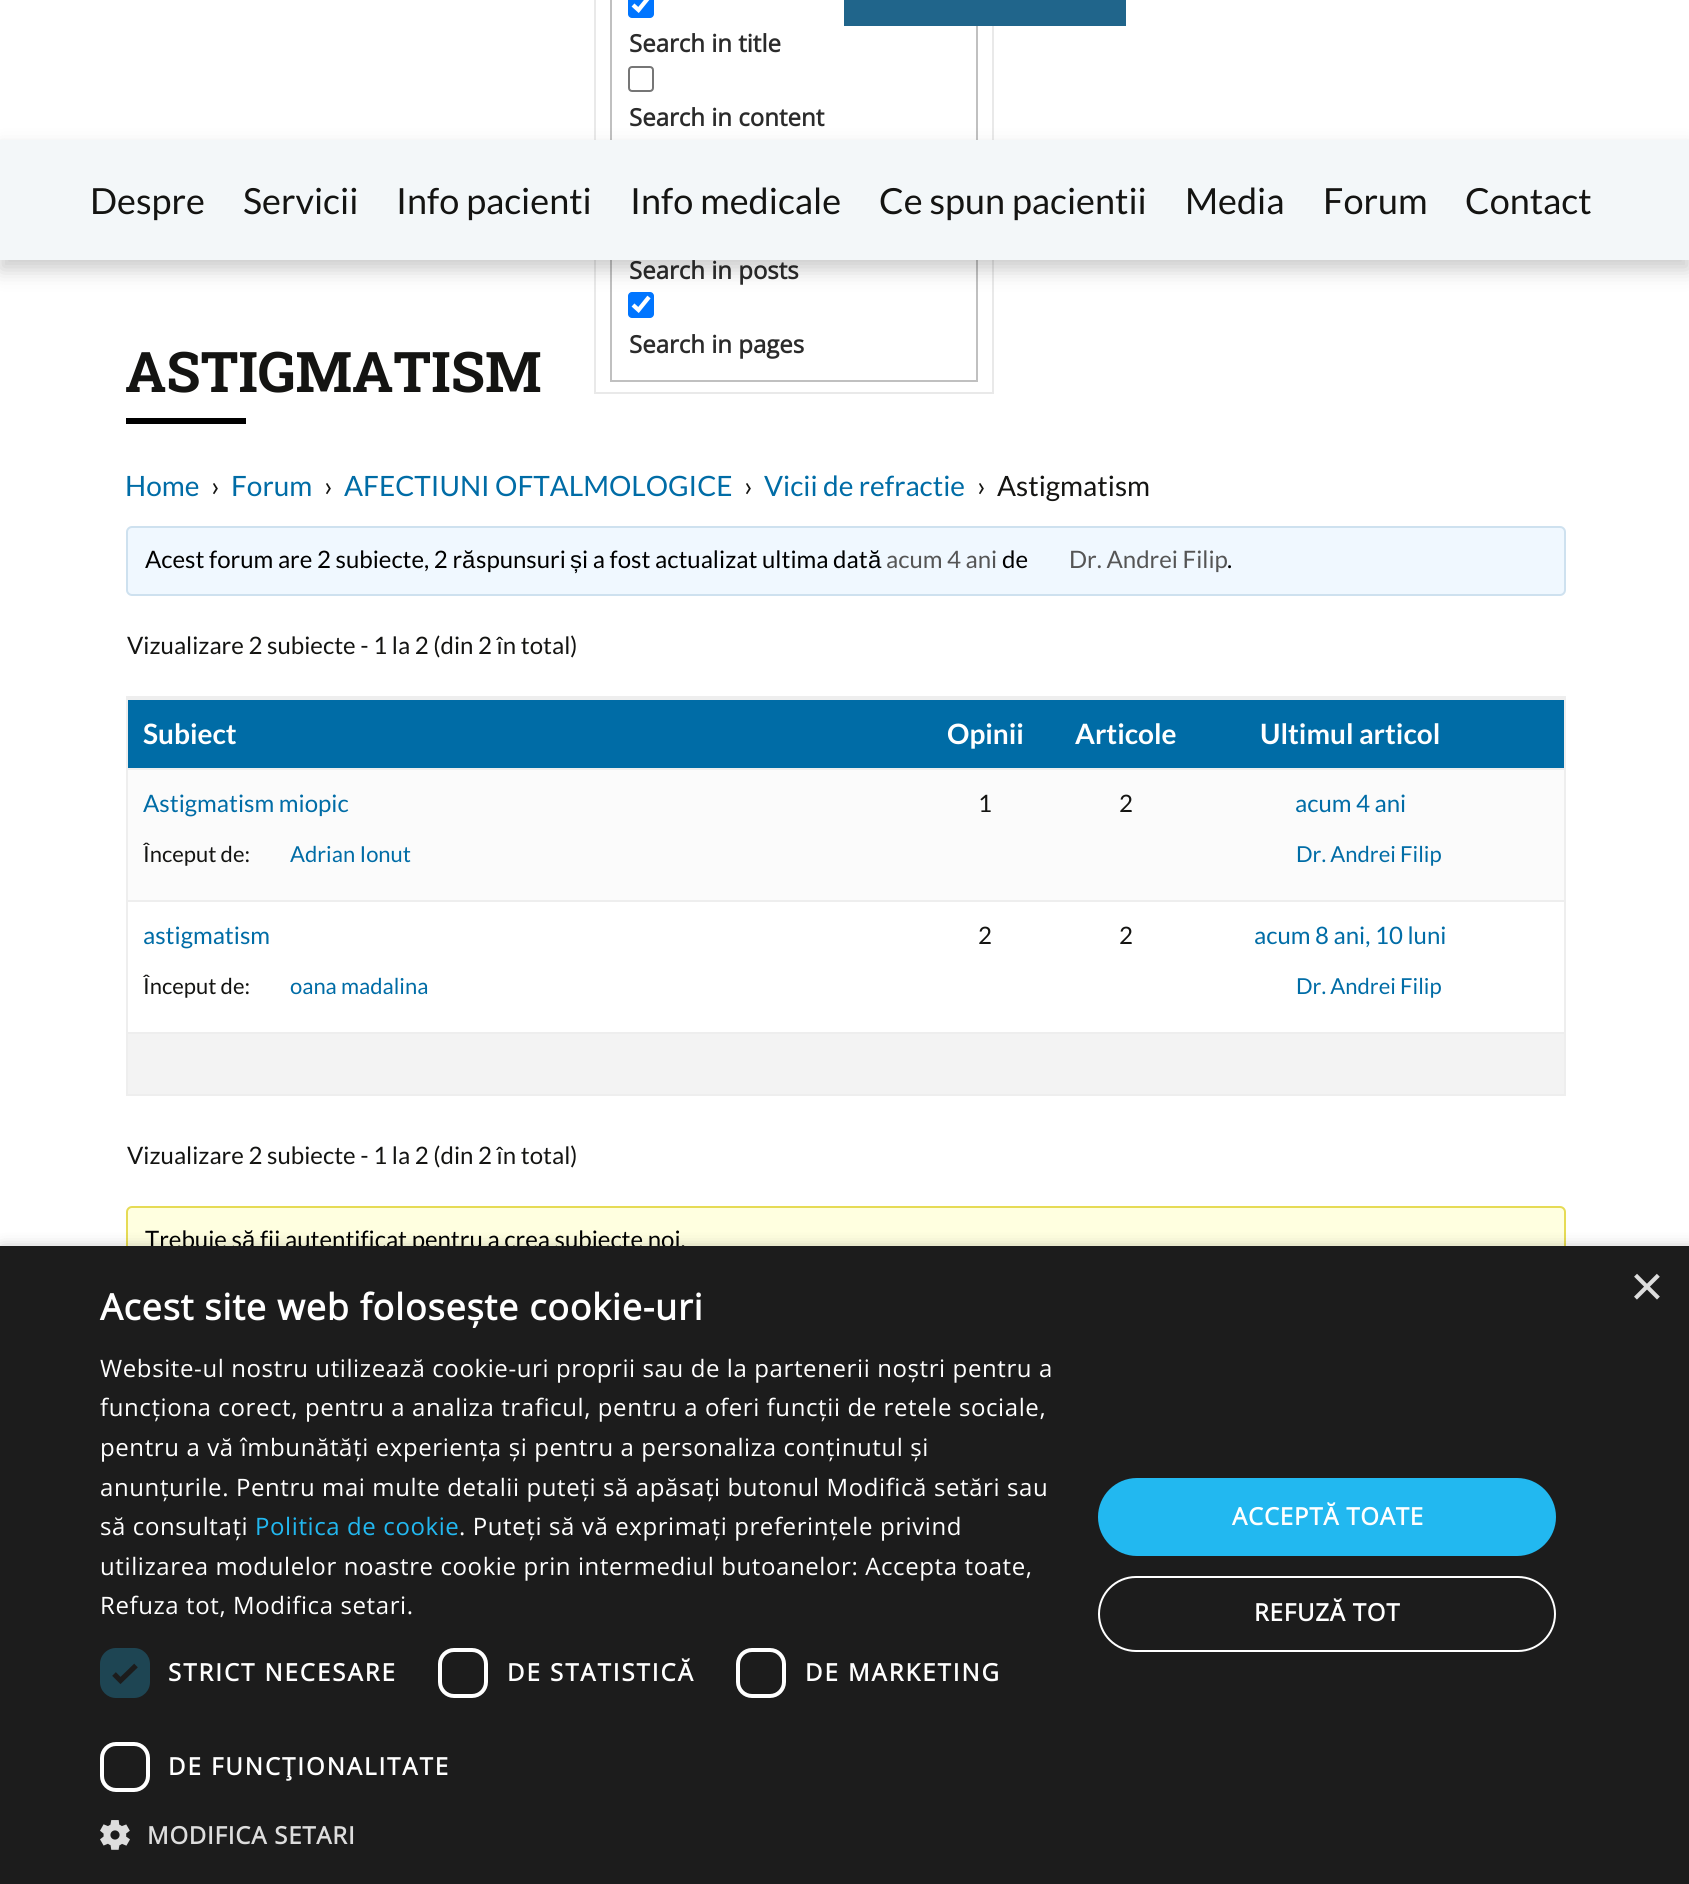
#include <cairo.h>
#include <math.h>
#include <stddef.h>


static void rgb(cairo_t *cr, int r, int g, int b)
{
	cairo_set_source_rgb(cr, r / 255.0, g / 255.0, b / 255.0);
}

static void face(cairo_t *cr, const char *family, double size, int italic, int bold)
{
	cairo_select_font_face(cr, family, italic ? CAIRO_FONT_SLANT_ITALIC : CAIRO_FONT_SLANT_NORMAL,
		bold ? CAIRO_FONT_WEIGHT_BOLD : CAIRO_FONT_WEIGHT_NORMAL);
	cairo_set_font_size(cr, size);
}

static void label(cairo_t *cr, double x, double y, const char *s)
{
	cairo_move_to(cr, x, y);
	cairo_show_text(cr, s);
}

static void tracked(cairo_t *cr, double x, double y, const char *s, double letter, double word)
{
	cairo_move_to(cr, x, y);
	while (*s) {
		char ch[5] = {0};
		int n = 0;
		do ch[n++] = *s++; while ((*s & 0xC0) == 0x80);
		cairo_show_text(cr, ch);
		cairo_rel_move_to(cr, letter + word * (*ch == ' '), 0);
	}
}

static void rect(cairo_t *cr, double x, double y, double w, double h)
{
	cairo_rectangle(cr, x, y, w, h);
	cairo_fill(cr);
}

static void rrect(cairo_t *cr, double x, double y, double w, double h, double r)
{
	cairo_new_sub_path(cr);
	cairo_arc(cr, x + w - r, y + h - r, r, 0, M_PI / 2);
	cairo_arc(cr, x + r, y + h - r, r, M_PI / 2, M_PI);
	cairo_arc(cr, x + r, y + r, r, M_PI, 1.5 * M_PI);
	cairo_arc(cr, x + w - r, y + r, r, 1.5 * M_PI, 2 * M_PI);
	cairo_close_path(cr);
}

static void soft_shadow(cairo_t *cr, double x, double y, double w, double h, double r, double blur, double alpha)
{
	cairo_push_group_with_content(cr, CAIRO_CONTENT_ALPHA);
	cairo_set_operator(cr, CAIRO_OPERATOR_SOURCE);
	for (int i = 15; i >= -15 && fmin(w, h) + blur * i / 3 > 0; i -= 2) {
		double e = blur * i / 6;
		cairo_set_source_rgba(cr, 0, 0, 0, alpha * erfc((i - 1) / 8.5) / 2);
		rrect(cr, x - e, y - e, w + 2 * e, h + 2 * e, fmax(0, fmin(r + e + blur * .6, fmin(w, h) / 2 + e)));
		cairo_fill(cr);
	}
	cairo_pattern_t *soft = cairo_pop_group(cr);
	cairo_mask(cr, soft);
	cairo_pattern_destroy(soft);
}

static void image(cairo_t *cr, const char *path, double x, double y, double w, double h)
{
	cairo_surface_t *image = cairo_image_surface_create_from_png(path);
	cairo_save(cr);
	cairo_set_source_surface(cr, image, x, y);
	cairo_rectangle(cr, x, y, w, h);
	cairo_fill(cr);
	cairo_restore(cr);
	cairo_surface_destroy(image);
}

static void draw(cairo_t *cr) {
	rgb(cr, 255, 255, 255);
	cairo_paint(cr);
	cairo_rectangle(cr, 595, -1, 398, 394);
	rgb(cr, 233, 233, 233);
	cairo_stroke(cr);
	cairo_rectangle(cr, 611, -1, 366, 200);
	rgb(cr, 192, 192, 192);
	cairo_stroke(cr);
	rgb(cr, 32, 101, 139);
	rect(cr, 844, 0, 282, 26);
	rgb(cr, 0, 117, 255);
	rrect(cr, 628, -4, 26, 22, 4);
	cairo_fill(cr);
	cairo_new_path(cr);
	cairo_move_to(cr, 633, 5);
	cairo_line_to(cr, 638.5, 10);
	cairo_line_to(cr, 649, -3);
	rgb(cr, 255, 255, 255);
	cairo_set_line_width(cr, 4.2);
	cairo_stroke(cr);
	face(cr, "Open Sans", 24, 0, 1);
	rgb(cr, 43, 43, 43);
	label(cr, 629, 52, "Search in title");
	rrect(cr, 629, 67, 24, 24, 3);
	rgb(cr, 118, 118, 118);
	cairo_set_line_width(cr, 2);
	cairo_stroke(cr);
	rgb(cr, 43, 43, 43);
	label(cr, 629, 126, "Search in content");
	cairo_rectangle(cr, 611, 201, 366, 180);
	rgb(cr, 192, 192, 192);
	cairo_stroke(cr);
	rgb(cr, 43, 43, 43);
	label(cr, 629, 279, "Search in posts");
	rgb(cr, 0, 117, 255);
	rrect(cr, 628, 292, 26, 26, 4);
	cairo_fill(cr);
	cairo_new_path(cr);
	cairo_move_to(cr, 633, 305);
	cairo_line_to(cr, 638.5, 310);
	cairo_line_to(cr, 649, 297);
	rgb(cr, 255, 255, 255);
	cairo_set_line_width(cr, 4.2);
	cairo_stroke(cr);
	rgb(cr, 43, 43, 43);
	label(cr, 629, 353, "Search in pages");
	rgb(cr, 0, 0, 0);
	soft_shadow(cr, 0, 150, 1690, 120, 0, 10, 0.2);
	rgb(cr, 243, 247, 249);
	rect(cr, 0, 140, 1689, 120);
	face(cr, "Lato", 36, 0, 0);
	rgb(cr, 20, 20, 18);
	label(cr, 90, 214, "Despre");
	label(cr, 243, 214, "Servicii");
	label(cr, 396, 214, "Info pacienti");
	label(cr, 630, 214, "Info medicale");
	label(cr, 879, 214, "Ce spun pacientii");
	label(cr, 1185, 214, "Media");
	label(cr, 1323, 214, "Forum");
	label(cr, 1465, 214, "Contact");
	face(cr, "Roboto Slab", 56, 0, 1);
	label(cr, 125, 392, "ASTIGMATISM");
	rgb(cr, 0, 0, 0);
	rect(cr, 126, 418, 120, 6);
	face(cr, "Lato", 28, 0, 0);
	rgb(cr, 0, 108, 166);
	label(cr, 125, 496, "Home");
	rgb(cr, 20, 20, 18);
	label(cr, 211, 496, "›");
	rgb(cr, 0, 108, 166);
	label(cr, 231, 496, "Forum");
	rgb(cr, 20, 20, 18);
	label(cr, 324, 496, "›");
	rgb(cr, 0, 108, 166);
	label(cr, 344, 496, "AFECTIUNI OFTALMOLOGICE");
	rgb(cr, 20, 20, 18);
	label(cr, 744, 496, "›");
	rgb(cr, 0, 108, 166);
	label(cr, 764, 496, "Vicii de refractie");
	rgb(cr, 20, 20, 18);
	label(cr, 977, 496, "›");
	label(cr, 997, 496, "Astigmatism");
	rgb(cr, 240, 248, 255);
	rrect(cr, 127, 527, 1438, 68, 5);
	cairo_fill_preserve(cr);
	rgb(cr, 206, 225, 239);
	cairo_set_line_width(cr, 2);
	cairo_stroke(cr);
	face(cr, "Lato", 24, 0, 0);
	rgb(cr, 0, 0, 0);
	label(cr, 145, 568, "Acest forum are 2 subiecte, 2 r");
	face(cr, "Liberation Sans", 24, 0, 0);
	label(cr, 462, 568, "ă");
	face(cr, "Lato", 24, 0, 0);
	label(cr, 476, 568, "spunsuri");
	face(cr, "Liberation Sans", 24, 0, 0);
	label(cr, 570, 568, "ș");
	face(cr, "Lato", 24, 0, 0);
	label(cr, 582, 568, "i a fost actualizat ultima dat");
	face(cr, "Liberation Sans", 24, 0, 0);
	label(cr, 868, 568, "ă");
	face(cr, "Lato", 24, 0, 0);
	rgb(cr, 85, 85, 85);
	label(cr, 886, 568, "acum 4 ani");
	rgb(cr, 0, 0, 0);
	label(cr, 1002, 568, "de");
	rgb(cr, 85, 85, 85);
	label(cr, 1069, 568, "Dr. Andrei Filip");
	rgb(cr, 0, 0, 0);
	label(cr, 1227, 568, ".");
	rgb(cr, 20, 20, 18);
	label(cr, 127, 654, "Vizualizare 2 subiecte - 1 la 2 (din 2 în total)");
	cairo_rectangle(cr, 127, 697, 1438, 398);
	rgb(cr, 238, 238, 238);
	cairo_stroke(cr);
	rgb(cr, 0, 108, 166);
	rect(cr, 128, 700, 1436, 68);
	rgb(cr, 238, 238, 238);
	rect(cr, 128, 698, 1436, 2);
	face(cr, "Lato", 28, 0, 1);
	rgb(cr, 255, 255, 255);
	label(cr, 143, 744, "Subiect");
	label(cr, 947, 744, "Opinii");
	label(cr, 1075, 744, "Articole");
	label(cr, 1260, 744, "Ultimul articol");
	rgb(cr, 251, 251, 251);
	rect(cr, 128, 770, 1436, 130);
	rgb(cr, 238, 238, 238);
	rect(cr, 128, 768, 1436, 2);
	face(cr, "Lato", 24, 0, 0);
	rgb(cr, 0, 108, 166);
	label(cr, 143, 812, "Astigmatism miopic");
	face(cr, "Lato", 22, 0, 0);
	rgb(cr, 20, 20, 18);
	label(cr, 143, 862, "Început de:");
	rgb(cr, 0, 108, 166);
	label(cr, 290, 862, "Adrian Ionut");
	face(cr, "Lato", 24, 0, 0);
	rgb(cr, 20, 20, 18);
	label(cr, 978, 812, "1");
	label(cr, 1119, 812, "2");
	rgb(cr, 0, 108, 166);
	label(cr, 1295, 812, "acum 4 ani");
	face(cr, "Lato", 22, 0, 0);
	label(cr, 1296, 862, "Dr. Andrei Filip");
	rgb(cr, 238, 238, 238);
	rect(cr, 128, 900, 1436, 2);
	face(cr, "Lato", 24, 0, 0);
	rgb(cr, 0, 108, 166);
	label(cr, 143, 944, "astigmatism");
	face(cr, "Lato", 22, 0, 0);
	rgb(cr, 20, 20, 18);
	label(cr, 143, 994, "Început de:");
	rgb(cr, 0, 108, 166);
	label(cr, 290, 994, "oana madalina");
	face(cr, "Lato", 24, 0, 0);
	rgb(cr, 20, 20, 18);
	label(cr, 978, 944, "2");
	label(cr, 1119, 944, "2");
	rgb(cr, 0, 108, 166);
	label(cr, 1254, 944, "acum 8 ani, 10 luni");
	face(cr, "Lato", 22, 0, 0);
	label(cr, 1296, 994, "Dr. Andrei Filip");
	rgb(cr, 243, 243, 243);
	rect(cr, 128, 1034, 1436, 60);
	rgb(cr, 238, 238, 238);
	rect(cr, 128, 1032, 1436, 2);
	face(cr, "Lato", 24, 0, 0);
	rgb(cr, 20, 20, 18);
	label(cr, 127, 1164, "Vizualizare 2 subiecte - 1 la 2 (din 2 în total)");
	rgb(cr, 255, 255, 224);
	rrect(cr, 127, 1207, 1438, 68, 5);
	cairo_fill_preserve(cr);
	rgb(cr, 230, 219, 85);
	cairo_stroke(cr);
	rgb(cr, 0, 0, 0);
	label(cr, 145, 1248, "Trebuie s");
	face(cr, "Liberation Sans", 24, 0, 0);
	label(cr, 242, 1248, "ă");
	face(cr, "Lato", 24, 0, 0);
	label(cr, 260, 1248, "fii autentificat pentru a crea subiecte noi.");
	rgb(cr, 0, 0, 0);
	soft_shadow(cr, 2, 1250, 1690, 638, 0, 8, 0.35);
	rgb(cr, 28, 28, 28);
	rect(cr, 0, 1246, 1689, 638);
	face(cr, "Liberation Sans", 58, 0, 0);
	rgb(cr, 221, 221, 221);
	label(cr, 1630, 1306, "×");
	face(cr, "Open Sans", 36, 0, 1);
	rgb(cr, 255, 255, 255);
	tracked(cr, 100, 1320, "Acest site web folosește cookie-uri", 0.8, 0);
	face(cr, "Open Sans", 24, 0, 0);
	tracked(cr, 100, 1377, "Website-ul nostru utilizează cookie-uri proprii sau de la partenerii noștri pentru a", 0.6, 0);
	tracked(cr, 100, 1416, "funcționa corect, pentru a analiza traficul, pentru a oferi funcții de retele sociale,", 0.6, 0);
	tracked(cr, 100, 1456, "pentru a vă îmbunătăți experiența și pentru a personaliza conținutul și", 0.6, 0);
	tracked(cr, 100, 1496, "anunțurile. Pentru mai multe detalii puteți să apăsați butonul Modifică setări sau", 0.6, 0);
	tracked(cr, 100, 1535, "să consultați", 0.6, 0);
	rgb(cr, 34, 184, 240);
	tracked(cr, 255, 1535, "Politica de cookie", 0.6, 0);
	rgb(cr, 255, 255, 255);
	tracked(cr, 459, 1535, ". Puteți să vă exprimați preferințele privind", 0.6, 0);
	tracked(cr, 100, 1575, "utilizarea modulelor noastre cookie prin intermediul butoanelor: Accepta toate,", 0.6, 0);
	tracked(cr, 100, 1614, "Refuza tot, Modifica setari.", 0.6, 0);
	rgb(cr, 30, 69, 83);
	rrect(cr, 100, 1648, 50, 50, 16);
	cairo_fill(cr);
	cairo_new_path(cr);
	cairo_move_to(cr, 114, 1674);
	cairo_line_to(cr, 120.5, 1680.5);
	cairo_line_to(cr, 136, 1665.5);
	rgb(cr, 28, 28, 28);
	cairo_set_line_width(cr, 5.2);
	cairo_stroke(cr);
	face(cr, "Open Sans", 24, 0, 1);
	rgb(cr, 255, 255, 255);
	tracked(cr, 168, 1681, "STRICT NECESARE", 2, 0);
	rrect(cr, 440, 1650, 46, 46, 14);
	cairo_set_line_width(cr, 4);
	cairo_stroke(cr);
	tracked(cr, 507, 1681, "DE STATISTICĂ", 2, 0);
	rrect(cr, 738, 1650, 46, 46, 14);
	cairo_stroke(cr);
	tracked(cr, 805, 1681, "DE MARKETING", 2, 0);
	rrect(cr, 102, 1744, 46, 46, 14);
	cairo_stroke(cr);
	tracked(cr, 168, 1775, "DE FUNCŢIONALITATE", 2, 0);
	image(cr, "image0.png", 100, 1820, 30, 30);
	rgb(cr, 221, 221, 221);
	tracked(cr, 147, 1844, "MODIFICA SETARI", 0.8, 0);
	rgb(cr, 34, 184, 240);
	rrect(cr, 1098, 1478, 458, 78, 39);
	cairo_fill(cr);
	rgb(cr, 255, 255, 255);
	tracked(cr, 1232, 1525, "ACCEPTĂ TOATE", 0.8, 0);
	rrect(cr, 1099, 1577, 456, 74, 37);
	cairo_set_line_width(cr, 2);
	cairo_stroke(cr);
	tracked(cr, 1254, 1621, "REFUZĂ TOT", 0.8, 0);
}

int main(void) {
	cairo_surface_t *surface = cairo_image_surface_create(CAIRO_FORMAT_RGB24, 1689, 1884);
	cairo_t *cr = cairo_create(surface);
	cairo_font_options_t *options = cairo_font_options_create();
	cairo_font_options_set_hint_metrics(options, CAIRO_HINT_METRICS_OFF);
	cairo_font_options_set_hint_style(options, CAIRO_HINT_STYLE_NONE);
	cairo_set_font_options(cr, options);
	cairo_set_miter_limit(cr, 4);
	draw(cr);
	cairo_surface_write_to_png(surface, "render.png");
	cairo_font_options_destroy(options);
	cairo_destroy(cr);
	cairo_surface_destroy(surface);
	return 0;
}
